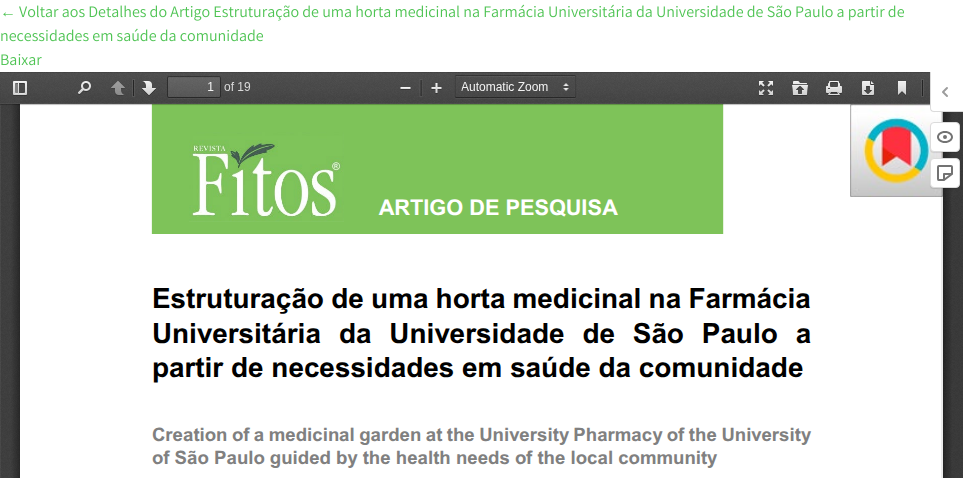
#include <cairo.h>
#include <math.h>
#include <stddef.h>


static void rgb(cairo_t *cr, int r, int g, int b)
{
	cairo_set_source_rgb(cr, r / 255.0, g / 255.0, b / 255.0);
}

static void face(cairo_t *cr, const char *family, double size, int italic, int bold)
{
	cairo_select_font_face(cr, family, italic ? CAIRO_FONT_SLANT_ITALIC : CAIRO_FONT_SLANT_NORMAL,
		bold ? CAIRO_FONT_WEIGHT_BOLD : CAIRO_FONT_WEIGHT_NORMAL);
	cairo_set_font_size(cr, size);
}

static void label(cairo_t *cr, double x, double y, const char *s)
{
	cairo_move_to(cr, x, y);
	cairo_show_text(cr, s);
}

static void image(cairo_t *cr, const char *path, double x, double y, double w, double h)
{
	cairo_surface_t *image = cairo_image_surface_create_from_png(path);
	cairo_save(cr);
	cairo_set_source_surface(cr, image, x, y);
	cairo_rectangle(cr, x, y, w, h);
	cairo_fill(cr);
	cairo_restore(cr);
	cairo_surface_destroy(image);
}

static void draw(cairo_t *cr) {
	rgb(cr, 255, 255, 255);
	cairo_paint(cr);
	face(cr, "Liberation Serif", 16, 0, 0);
	rgb(cr, 77, 195, 82);
	label(cr, 0, 17, "←");
	face(cr, "Assistant", 16, 0, 0);
	label(cr, 19, 17, "Voltar aos Detalhes do Artigo Estruturação de uma horta medicinal na Farmácia Universitária da Universidade de São Paulo a partir de");
	label(cr, 0, 41, "necessidades em saúde da comunidade");
	label(cr, 0, 65, "Baixar");
	image(cr, "image0.png", 0, 72, 963, 406);
}

int main(void) {
	cairo_surface_t *surface = cairo_image_surface_create(CAIRO_FORMAT_RGB24, 963, 478);
	cairo_t *cr = cairo_create(surface);
	cairo_font_options_t *options = cairo_font_options_create();
	cairo_font_options_set_hint_metrics(options, CAIRO_HINT_METRICS_OFF);
	cairo_font_options_set_hint_style(options, CAIRO_HINT_STYLE_NONE);
	cairo_set_font_options(cr, options);
	cairo_set_miter_limit(cr, 4);
	draw(cr);
	cairo_surface_write_to_png(surface, "render.png");
	cairo_font_options_destroy(options);
	cairo_destroy(cr);
	cairo_surface_destroy(surface);
	return 0;
}
